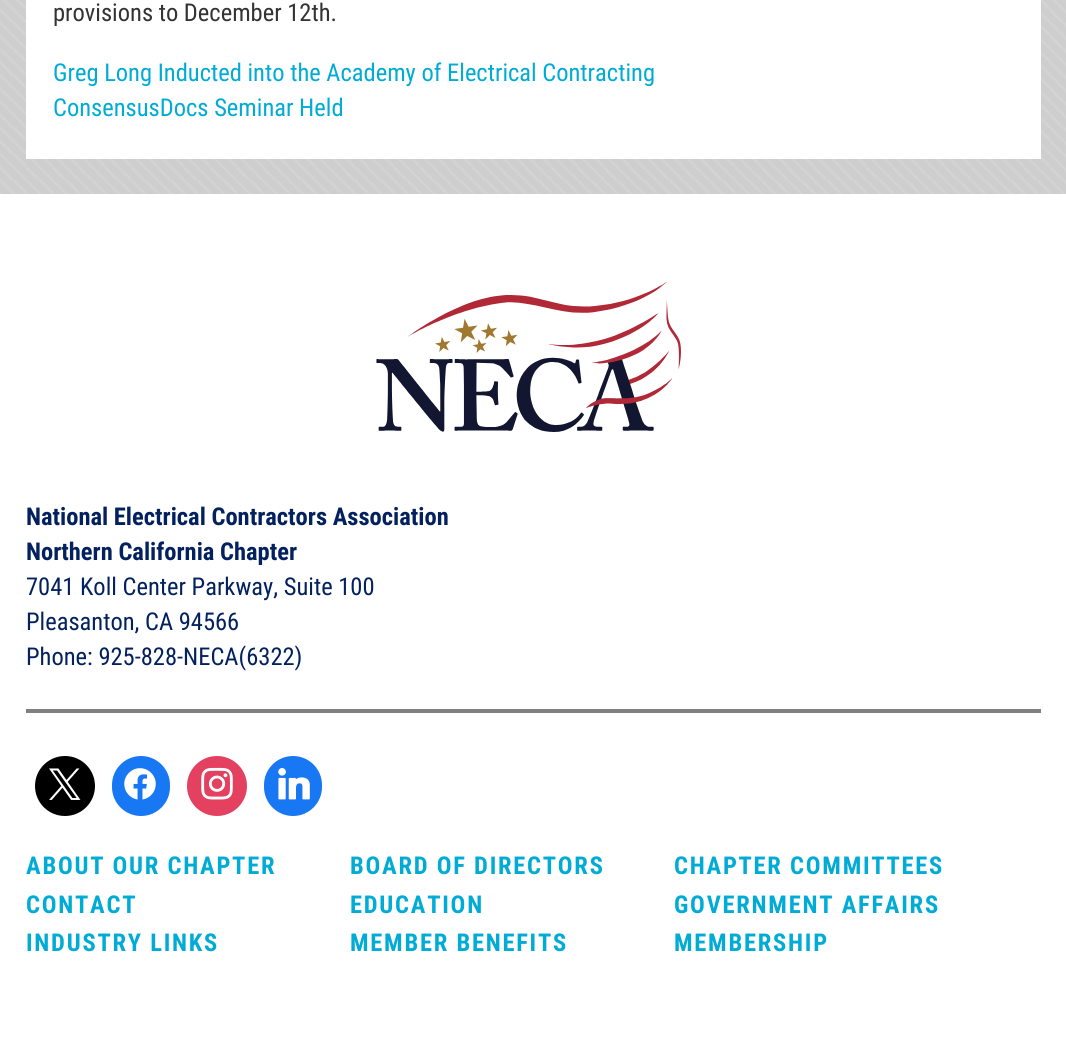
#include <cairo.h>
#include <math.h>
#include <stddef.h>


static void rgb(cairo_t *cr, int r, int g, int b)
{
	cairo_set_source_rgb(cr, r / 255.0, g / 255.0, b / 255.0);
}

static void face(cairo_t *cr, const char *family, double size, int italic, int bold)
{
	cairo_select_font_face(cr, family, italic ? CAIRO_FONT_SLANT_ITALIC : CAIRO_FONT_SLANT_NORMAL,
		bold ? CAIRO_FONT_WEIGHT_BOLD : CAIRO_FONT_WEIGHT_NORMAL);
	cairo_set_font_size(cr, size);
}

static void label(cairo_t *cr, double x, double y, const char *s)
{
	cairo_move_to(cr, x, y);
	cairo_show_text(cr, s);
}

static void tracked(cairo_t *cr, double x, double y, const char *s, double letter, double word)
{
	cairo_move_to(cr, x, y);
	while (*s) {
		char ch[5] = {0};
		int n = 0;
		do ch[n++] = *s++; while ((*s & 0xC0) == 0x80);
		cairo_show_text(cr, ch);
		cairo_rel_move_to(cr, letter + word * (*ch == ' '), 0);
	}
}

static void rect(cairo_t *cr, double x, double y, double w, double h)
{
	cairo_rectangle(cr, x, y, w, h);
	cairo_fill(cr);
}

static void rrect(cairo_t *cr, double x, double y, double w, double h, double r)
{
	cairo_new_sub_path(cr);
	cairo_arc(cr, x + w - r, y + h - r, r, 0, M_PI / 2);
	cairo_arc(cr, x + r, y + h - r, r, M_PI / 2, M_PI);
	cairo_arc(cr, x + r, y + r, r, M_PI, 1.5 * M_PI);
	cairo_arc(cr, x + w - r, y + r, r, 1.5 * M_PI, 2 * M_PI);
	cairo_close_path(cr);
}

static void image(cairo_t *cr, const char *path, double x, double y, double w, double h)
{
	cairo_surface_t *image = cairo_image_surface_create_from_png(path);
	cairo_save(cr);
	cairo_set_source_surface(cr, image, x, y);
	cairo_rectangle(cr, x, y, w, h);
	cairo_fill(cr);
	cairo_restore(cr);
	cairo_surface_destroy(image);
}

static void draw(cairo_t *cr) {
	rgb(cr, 255, 255, 255);
	cairo_paint(cr);
	image(cr, "image0.png", 0, 0, 1066, 194);
	rgb(cr, 255, 255, 255);
	rect(cr, 26, 0, 1015, 159);
	face(cr, "Roboto Condensed", 24.5, 0, 0);
	rgb(cr, 51, 51, 51);
	label(cr, 53, 21, "provisions to December 12th.");
	rgb(cr, 0, 171, 214);
	label(cr, 53, 81, "Greg Long Inducted into the Academy of Electrical Contracting");
	label(cr, 53, 116, "ConsensusDocs Seminar Held");
	image(cr, "image1.png", 376, 282, 305, 150);
	face(cr, "Roboto Condensed", 24.5, 0, 1);
	rgb(cr, 3, 33, 95);
	label(cr, 26, 525, "National Electrical Contractors Association");
	label(cr, 26, 560, "Northern California Chapter");
	face(cr, "Roboto Condensed", 24.5, 0, 0);
	label(cr, 26, 595, "7041 Koll Center Parkway, Suite 100");
	label(cr, 26, 630, "Pleasanton, CA 94566");
	label(cr, 26, 665, "Phone: 925-828-NECA(6322)");
	rgb(cr, 128, 128, 128);
	rect(cr, 26, 709, 1015, 4);
	rgb(cr, 0, 0, 0);
	cairo_new_path(cr);
	cairo_arc(cr, 65, 786, 30, 0, 2 * M_PI);
	cairo_fill(cr);
	image(cr, "image2.png", 49, 768, 32, 32);
	rgb(cr, 24, 119, 242);
	rrect(cr, 112, 756, 58, 60, 29);
	cairo_fill(cr);
	image(cr, "image3.png", 124, 768, 32, 32);
	rgb(cr, 228, 64, 95);
	cairo_arc(cr, 217, 786, 30, 0, 2 * M_PI);
	cairo_fill(cr);
	image(cr, "image4.png", 201, 767, 32, 33);
	rgb(cr, 24, 119, 242);
	rrect(cr, 264, 756, 58, 60, 29);
	cairo_fill(cr);
	image(cr, "image5.png", 278, 768, 32, 32);
	face(cr, "Roboto Condensed", 24.5, 0, 1);
	rgb(cr, 0, 171, 214);
	tracked(cr, 26, 874, "ABOUT OUR CHAPTER", 1.75, 0);
	tracked(cr, 350, 874, "BOARD OF DIRECTORS", 1.75, 0);
	tracked(cr, 674, 874, "CHAPTER COMMITTEES", 1.75, 0);
	tracked(cr, 26, 913, "CONTACT", 1.75, 0);
	tracked(cr, 350, 913, "EDUCATION", 1.75, 0);
	tracked(cr, 674, 913, "GOVERNMENT AFFAIRS", 1.75, 0);
	tracked(cr, 26, 951, "INDUSTRY LINKS", 1.75, 0);
	tracked(cr, 350, 951, "MEMBER BENEFITS", 1.75, 0);
	tracked(cr, 674, 951, "MEMBERSHIP", 1.75, 0);
}

int main(void) {
	cairo_surface_t *surface = cairo_image_surface_create(CAIRO_FORMAT_RGB24, 1066, 1044);
	cairo_t *cr = cairo_create(surface);
	cairo_font_options_t *options = cairo_font_options_create();
	cairo_font_options_set_hint_metrics(options, CAIRO_HINT_METRICS_OFF);
	cairo_font_options_set_hint_style(options, CAIRO_HINT_STYLE_NONE);
	cairo_set_font_options(cr, options);
	cairo_set_miter_limit(cr, 4);
	draw(cr);
	cairo_surface_write_to_png(surface, "render.png");
	cairo_font_options_destroy(options);
	cairo_destroy(cr);
	cairo_surface_destroy(surface);
	return 0;
}
